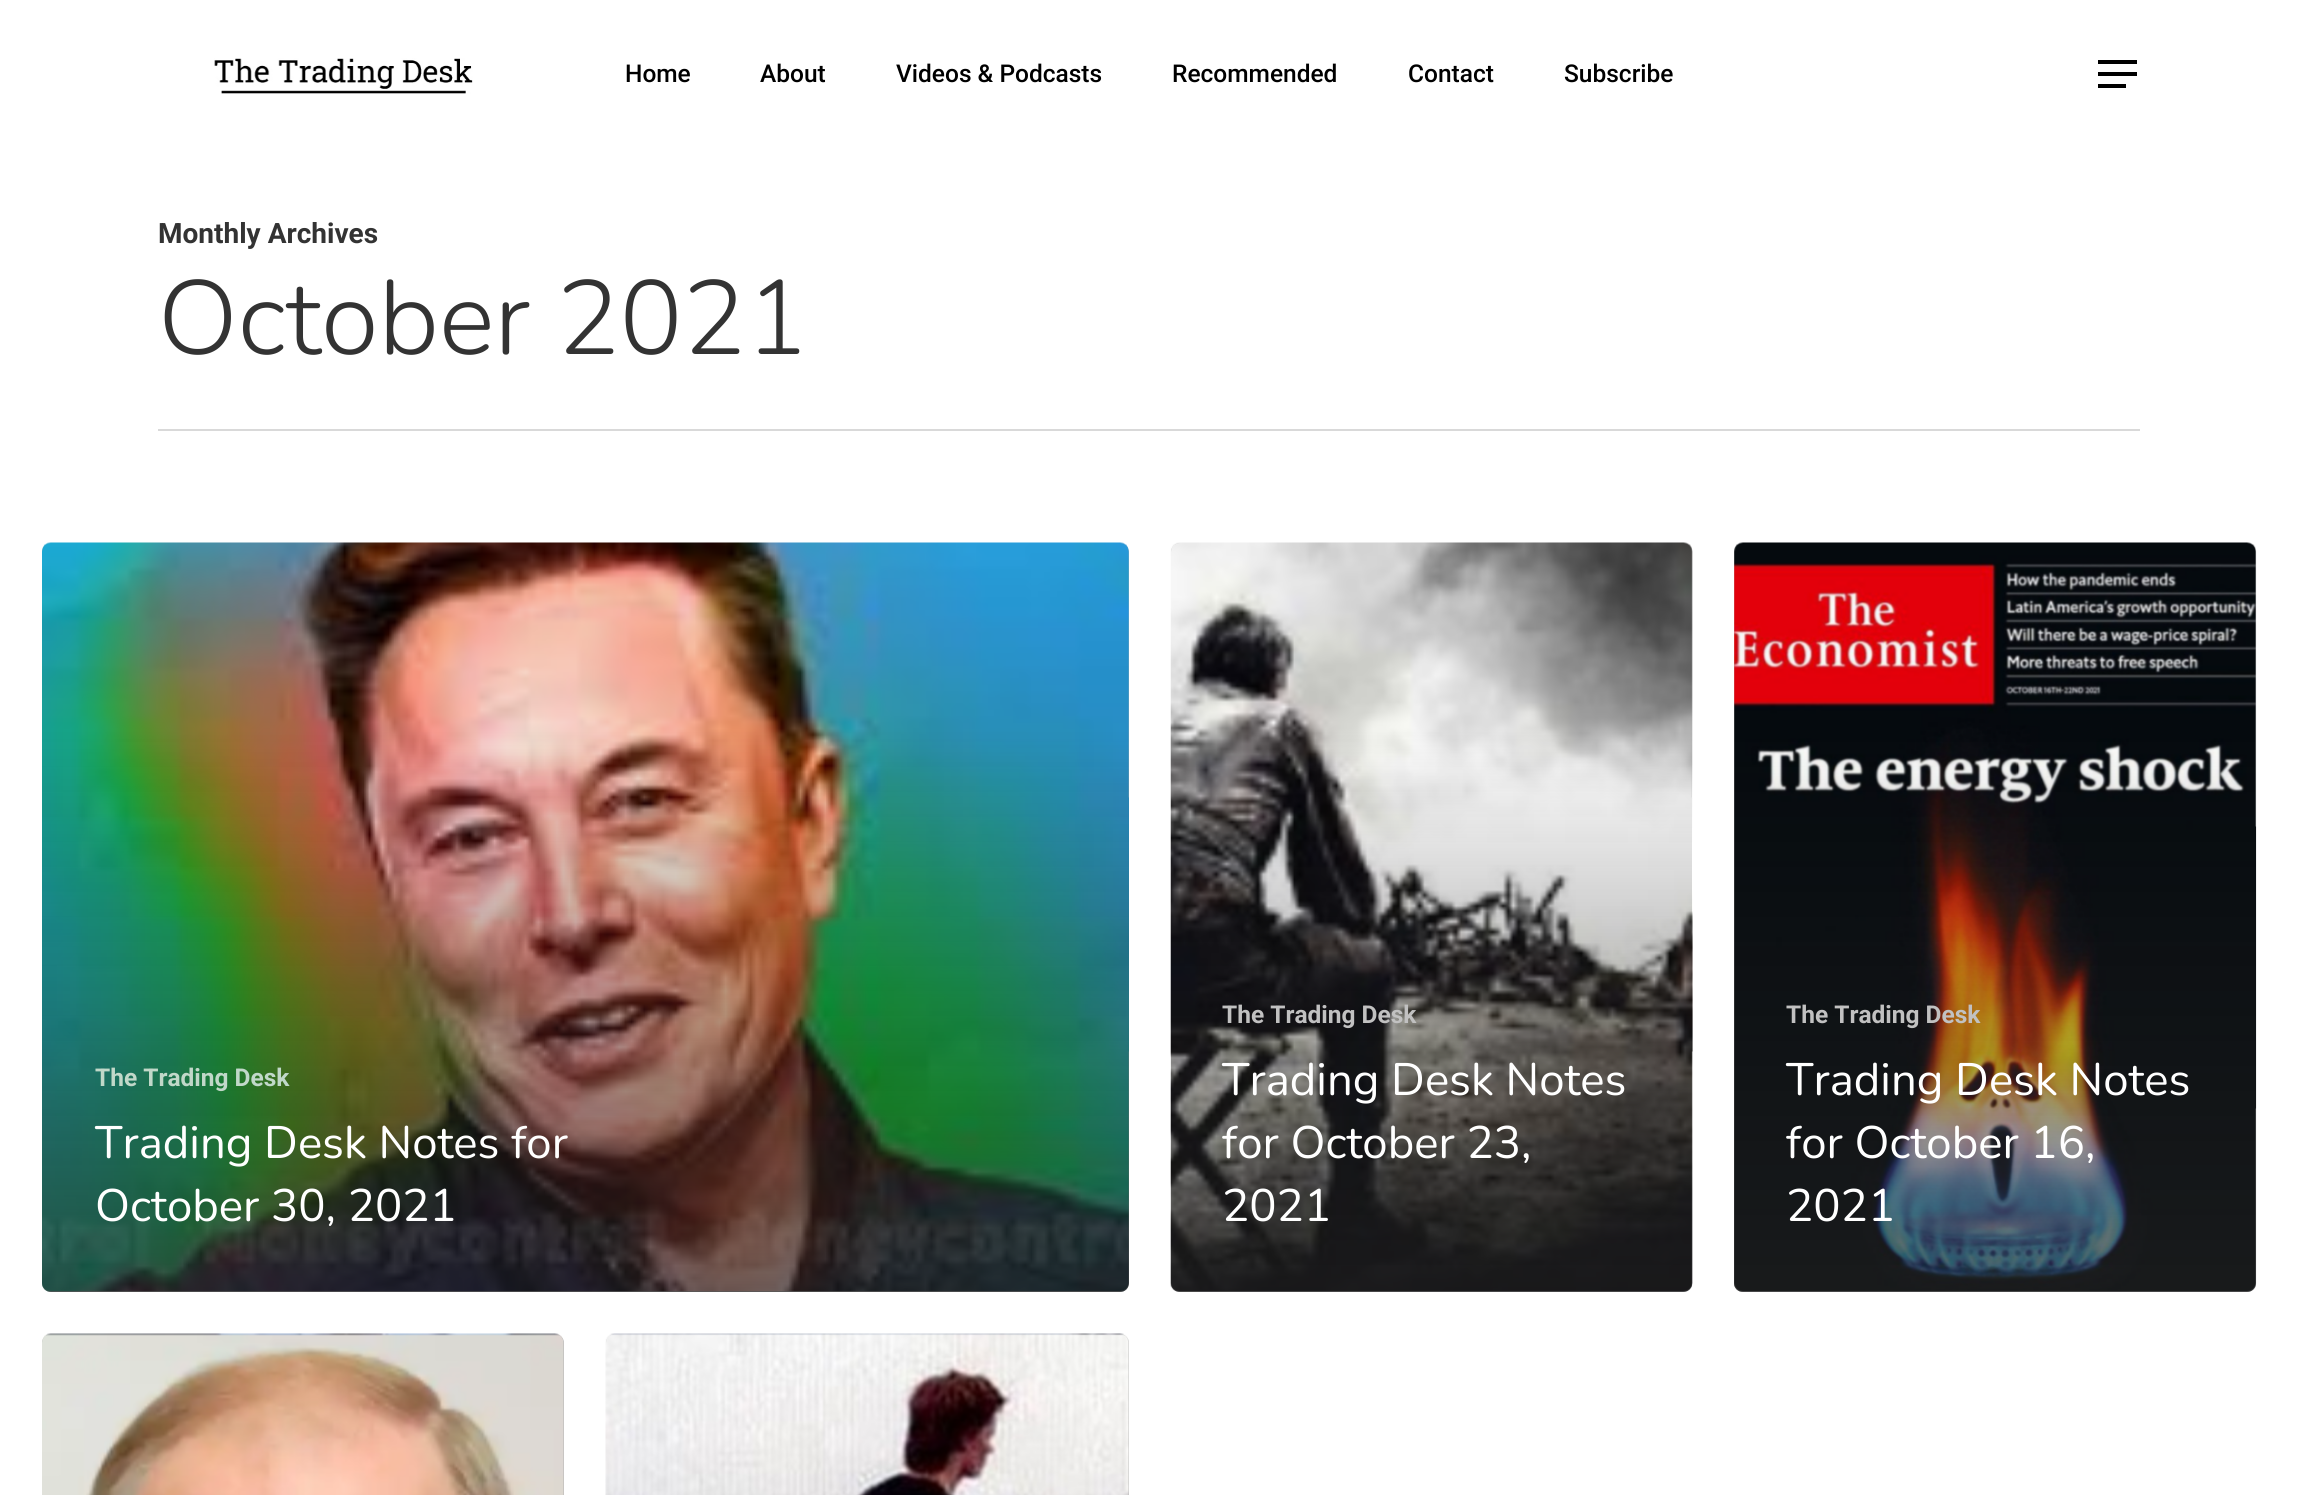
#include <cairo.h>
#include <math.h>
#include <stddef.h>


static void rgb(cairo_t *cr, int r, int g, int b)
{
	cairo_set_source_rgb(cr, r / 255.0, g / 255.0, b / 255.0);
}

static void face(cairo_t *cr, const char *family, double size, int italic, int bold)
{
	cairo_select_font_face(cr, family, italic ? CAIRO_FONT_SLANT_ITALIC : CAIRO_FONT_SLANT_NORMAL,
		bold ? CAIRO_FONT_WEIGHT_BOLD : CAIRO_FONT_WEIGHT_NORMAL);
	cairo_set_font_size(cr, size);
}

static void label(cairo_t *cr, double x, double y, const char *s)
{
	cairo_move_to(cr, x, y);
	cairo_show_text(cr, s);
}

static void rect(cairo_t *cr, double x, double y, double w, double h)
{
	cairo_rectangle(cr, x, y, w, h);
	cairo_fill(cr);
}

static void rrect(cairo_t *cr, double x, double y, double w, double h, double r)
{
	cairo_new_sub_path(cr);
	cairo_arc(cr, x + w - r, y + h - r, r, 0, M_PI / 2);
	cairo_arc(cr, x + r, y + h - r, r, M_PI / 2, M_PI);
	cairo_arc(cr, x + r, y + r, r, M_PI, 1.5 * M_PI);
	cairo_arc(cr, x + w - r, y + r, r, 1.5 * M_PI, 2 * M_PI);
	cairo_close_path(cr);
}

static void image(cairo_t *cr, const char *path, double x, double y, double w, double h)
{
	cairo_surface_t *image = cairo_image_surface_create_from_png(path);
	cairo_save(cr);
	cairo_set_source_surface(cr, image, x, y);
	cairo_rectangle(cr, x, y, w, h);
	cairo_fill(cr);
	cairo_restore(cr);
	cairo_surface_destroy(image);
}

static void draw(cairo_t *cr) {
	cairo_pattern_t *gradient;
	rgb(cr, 255, 255, 255);
	cairo_paint(cr);
	image(cr, "image0.png", 214, 58, 259, 36);
	face(cr, "Roboto Medium", 24.5, 0, 0);
	rgb(cr, 0, 0, 0);
	label(cr, 625, 82, "Home");
	label(cr, 760, 82, "About");
	label(cr, 896, 82, "Videos & Podcasts");
	label(cr, 1172, 82, "Recommended");
	label(cr, 1408, 82, "Contact");
	label(cr, 1564, 82, "Subscribe");
	rect(cr, 2098, 60, 39, 4);
	rect(cr, 2098, 84, 28, 4);
	rect(cr, 2098, 72, 39, 4);
	rgb(cr, 217, 217, 217);
	rect(cr, 158, 429, 1982, 2);
	face(cr, "Roboto", 28, 0, 1);
	rgb(cr, 51, 51, 51);
	label(cr, 158, 243, "Monthly Archives");
	face(cr, "Nunito Light", 105, 0, 0);
	label(cr, 158, 354, "October 2021");
	rgb(cr, 179, 179, 179);
	rrect(cr, 42, 543, 1087, 749, 9);
	cairo_fill(cr);
	image(cr, "image1.png", 42, 542, 1087, 750);
	gradient = cairo_pattern_create_linear(588, 730, 588, 1295);
	cairo_pattern_add_color_stop_rgba(gradient, 0, 0.137, 0.137, 0.137, 0);
	cairo_pattern_add_color_stop_rgba(gradient, 1, 0.137, 0.137, 0.137, 0.65);
	cairo_set_source(cr, gradient);
	cairo_pattern_destroy(gradient);
	cairo_new_path(cr);
	cairo_move_to(cr, 42, 730);
	cairo_line_to(cr, 1129, 730);
	cairo_line_to(cr, 1129, 1283);
	cairo_curve_to(cr, 1129, 1288, 1125, 1292, 1120, 1292);
	cairo_line_to(cr, 51, 1292);
	cairo_curve_to(cr, 46, 1292, 42, 1288, 42, 1283);
	cairo_close_path(cr);
	cairo_fill(cr);
	face(cr, "Roboto", 24.5, 0, 1);
	rgb(cr, 193, 216, 201);
	label(cr, 95, 1086, "The Trading Desk");
	face(cr, "Nunito", 45.5, 0, 0);
	rgb(cr, 255, 255, 255);
	label(cr, 95, 1158, "Trading Desk Notes for");
	label(cr, 95, 1221, "October 30, 2021");
	rgb(cr, 179, 179, 179);
	rrect(cr, 1171, 543, 521, 749, 9);
	cairo_fill(cr);
	image(cr, "image2.png", 1170, 542, 523, 750);
	gradient = cairo_pattern_create_linear(1432, 730, 1432, 1295);
	cairo_pattern_add_color_stop_rgba(gradient, 0, 0.137, 0.137, 0.137, 0);
	cairo_pattern_add_color_stop_rgba(gradient, 1, 0.137, 0.137, 0.137, 0.65);
	cairo_set_source(cr, gradient);
	cairo_pattern_destroy(gradient);
	cairo_new_path(cr);
	cairo_move_to(cr, 1171, 730);
	cairo_line_to(cr, 1692, 730);
	cairo_line_to(cr, 1692, 1283);
	cairo_curve_to(cr, 1692, 1288, 1688, 1292, 1683, 1292);
	cairo_line_to(cr, 1180, 1292);
	cairo_curve_to(cr, 1175, 1292, 1171, 1288, 1171, 1283);
	cairo_close_path(cr);
	cairo_fill(cr);
	face(cr, "Roboto", 24.5, 0, 1);
	rgb(cr, 193, 193, 193);
	label(cr, 1222, 1023, "The Trading Desk");
	face(cr, "Nunito", 45.5, 0, 0);
	rgb(cr, 255, 255, 255);
	label(cr, 1222, 1095, "Trading Desk Notes");
	label(cr, 1222, 1158, "for October 23,");
	label(cr, 1222, 1221, "2021");
	rgb(cr, 179, 179, 179);
	rrect(cr, 1734, 543, 522, 749, 9);
	cairo_fill(cr);
	image(cr, "image3.png", 1734, 542, 523, 750);
	gradient = cairo_pattern_create_linear(1996, 730, 1996, 1295);
	cairo_pattern_add_color_stop_rgba(gradient, 0, 0.137, 0.137, 0.137, 0);
	cairo_pattern_add_color_stop_rgba(gradient, 1, 0.137, 0.137, 0.137, 0.65);
	cairo_set_source(cr, gradient);
	cairo_pattern_destroy(gradient);
	cairo_new_path(cr);
	cairo_move_to(cr, 1734, 730);
	cairo_line_to(cr, 2256, 730);
	cairo_line_to(cr, 2256, 1283);
	cairo_curve_to(cr, 2256, 1288, 2252, 1292, 2247, 1292);
	cairo_line_to(cr, 1743, 1292);
	cairo_curve_to(cr, 1738, 1292, 1734, 1288, 1734, 1283);
	cairo_close_path(cr);
	cairo_fill(cr);
	face(cr, "Roboto", 24.5, 0, 1);
	rgb(cr, 193, 193, 193);
	label(cr, 1786, 1023, "The Trading Desk");
	face(cr, "Nunito", 45.5, 0, 0);
	rgb(cr, 255, 255, 255);
	label(cr, 1786, 1095, "Trading Desk Notes");
	label(cr, 1786, 1158, "for October 16,");
	label(cr, 1786, 1221, "2021");
	rgb(cr, 179, 179, 179);
	rrect(cr, 42, 1334, 522, 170, 9);
	cairo_fill(cr);
	image(cr, "image4.png", 42, 1333, 522, 162);
	rrect(cr, 606, 1334, 523, 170, 9);
	cairo_fill(cr);
	image(cr, "image5.png", 605, 1333, 524, 162);
}

int main(void) {
	cairo_surface_t *surface = cairo_image_surface_create(CAIRO_FORMAT_RGB24, 2297, 1495);
	cairo_t *cr = cairo_create(surface);
	cairo_font_options_t *options = cairo_font_options_create();
	cairo_font_options_set_hint_metrics(options, CAIRO_HINT_METRICS_OFF);
	cairo_font_options_set_hint_style(options, CAIRO_HINT_STYLE_NONE);
	cairo_set_font_options(cr, options);
	cairo_set_miter_limit(cr, 4);
	draw(cr);
	cairo_surface_write_to_png(surface, "render.png");
	cairo_font_options_destroy(options);
	cairo_destroy(cr);
	cairo_surface_destroy(surface);
	return 0;
}
